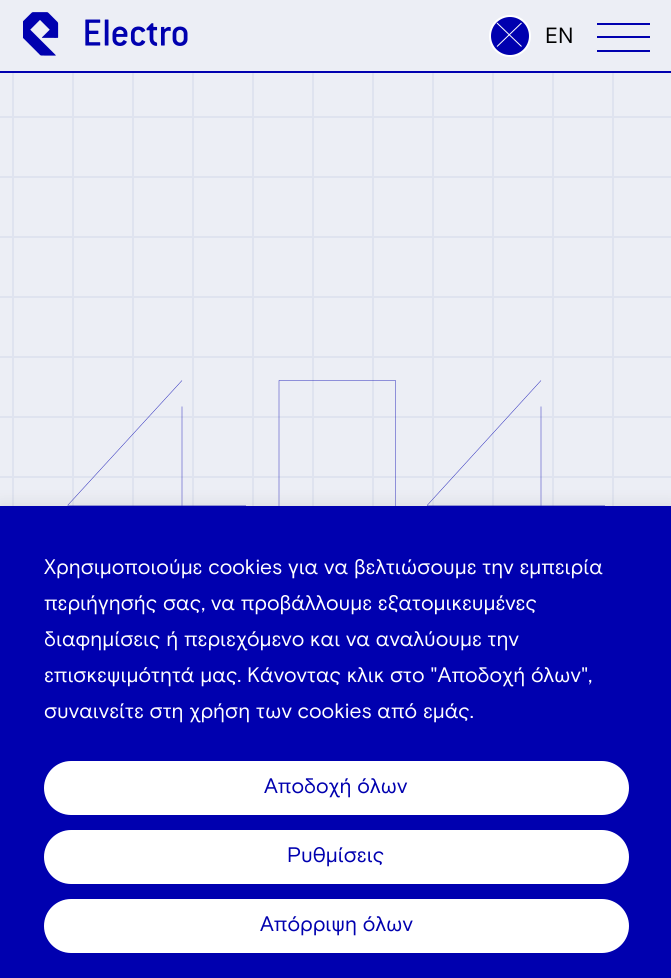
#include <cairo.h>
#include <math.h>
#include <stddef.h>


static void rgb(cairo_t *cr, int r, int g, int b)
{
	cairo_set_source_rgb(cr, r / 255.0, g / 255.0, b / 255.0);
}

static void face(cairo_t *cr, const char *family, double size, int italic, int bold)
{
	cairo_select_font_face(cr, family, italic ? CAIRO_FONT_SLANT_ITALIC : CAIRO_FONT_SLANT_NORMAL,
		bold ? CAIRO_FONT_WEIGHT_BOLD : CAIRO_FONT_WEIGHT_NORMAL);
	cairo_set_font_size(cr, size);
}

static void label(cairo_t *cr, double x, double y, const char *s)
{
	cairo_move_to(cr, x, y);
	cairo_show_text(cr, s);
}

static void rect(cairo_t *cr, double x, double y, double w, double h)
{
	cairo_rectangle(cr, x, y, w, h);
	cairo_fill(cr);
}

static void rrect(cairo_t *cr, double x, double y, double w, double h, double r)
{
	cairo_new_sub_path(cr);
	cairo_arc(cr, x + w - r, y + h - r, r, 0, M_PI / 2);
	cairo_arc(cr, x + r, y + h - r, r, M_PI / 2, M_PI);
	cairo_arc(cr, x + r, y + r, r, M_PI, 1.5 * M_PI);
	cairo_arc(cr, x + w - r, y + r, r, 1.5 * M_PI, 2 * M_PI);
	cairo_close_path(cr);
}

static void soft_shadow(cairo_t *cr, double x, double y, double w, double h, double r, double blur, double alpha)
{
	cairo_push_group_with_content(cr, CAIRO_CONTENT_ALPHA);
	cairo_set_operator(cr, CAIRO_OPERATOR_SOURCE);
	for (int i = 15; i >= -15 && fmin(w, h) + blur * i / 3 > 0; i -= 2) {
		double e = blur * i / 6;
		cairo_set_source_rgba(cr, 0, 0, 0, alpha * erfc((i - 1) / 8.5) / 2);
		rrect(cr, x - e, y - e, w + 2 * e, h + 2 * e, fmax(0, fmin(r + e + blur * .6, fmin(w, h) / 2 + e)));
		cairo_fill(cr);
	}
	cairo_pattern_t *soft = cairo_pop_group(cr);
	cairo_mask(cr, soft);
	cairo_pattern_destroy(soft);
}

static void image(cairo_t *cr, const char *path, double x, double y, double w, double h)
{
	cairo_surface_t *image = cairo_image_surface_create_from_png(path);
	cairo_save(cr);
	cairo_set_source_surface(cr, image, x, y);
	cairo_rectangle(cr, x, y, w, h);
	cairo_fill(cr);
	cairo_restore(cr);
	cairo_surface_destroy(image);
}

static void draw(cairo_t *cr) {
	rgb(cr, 236, 238, 245);
	cairo_paint(cr);
	rgb(cr, 0, 0, 175);
	rect(cr, 0, 71, 671, 2);
	image(cr, "image0.png", 23, 12, 165, 44);
	cairo_arc(cr, 510, 36, 20, 0, 2 * M_PI);
	cairo_fill_preserve(cr);
	rgb(cr, 255, 255, 255);
	cairo_stroke(cr);
	cairo_new_path(cr);
	cairo_move_to(cr, 521.5, 23);
	cairo_line_to(cr, 497, 46.5);
	cairo_move_to(cr, 497, 23);
	cairo_line_to(cr, 521.5, 46.5);
	cairo_set_line_width(cr, 1);
	cairo_stroke(cr);
	face(cr, "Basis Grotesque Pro", 22, 0, 0);
	rgb(cr, 0, 0, 0);
	label(cr, 545, 43, "EN");
	rgb(cr, 0, 0, 175);
	rect(cr, 597, 36, 53, 2);
	rect(cr, 597, 23, 53, 2);
	rect(cr, 597, 50, 53, 2);
	rgb(cr, 223, 227, 239);
	rect(cr, 12, 73, 2, 433);
	rect(cr, 72, 73, 2, 433);
	rect(cr, 132, 73, 2, 433);
	rect(cr, 192, 73, 2, 433);
	rect(cr, 252, 73, 2, 433);
	rect(cr, 312, 73, 2, 433);
	rect(cr, 372, 73, 2, 433);
	rect(cr, 432, 73, 2, 433);
	rect(cr, 492, 73, 2, 433);
	rect(cr, 552, 73, 2, 433);
	rect(cr, 612, 73, 2, 433);
	image(cr, "image1.png", 0, 116, 671, 362);
	cairo_new_path(cr);
	cairo_move_to(cr, 182, 380.5);
	cairo_line_to(cr, 67.5, 505.5);
	rgb(cr, 0, 0, 175);
	cairo_set_line_width(cr, 0.4);
	cairo_stroke(cr);
	cairo_set_source_rgba(cr, 0, 0, 0.686, 0.4);
	rect(cr, 68, 505, 178, 1);
	cairo_new_path(cr);
	cairo_move_to(cr, 182, 406.5);
	cairo_line_to(cr, 182, 597.5);
	rgb(cr, 0, 0, 175);
	cairo_stroke(cr);
	cairo_new_path(cr);
	cairo_move_to(cr, 279, 380.5);
	cairo_line_to(cr, 395.5, 380.5);
	cairo_line_to(cr, 395.5, 597.5);
	cairo_line_to(cr, 279, 597.5);
	cairo_close_path(cr);
	cairo_stroke(cr);
	cairo_new_path(cr);
	cairo_move_to(cr, 541, 380.5);
	cairo_line_to(cr, 427, 505.5);
	cairo_stroke(cr);
	cairo_set_source_rgba(cr, 0, 0, 0.686, 0.4);
	rect(cr, 427, 505, 178, 1);
	cairo_new_path(cr);
	cairo_move_to(cr, 541, 406.5);
	cairo_line_to(cr, 541, 597.5);
	rgb(cr, 0, 0, 175);
	cairo_stroke(cr);
	rgb(cr, 172, 171, 171);
	soft_shadow(cr, 0, 504, 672, 473, 0, 7.5, 0.3);
	rgb(cr, 0, 0, 175);
	rect(cr, 0, 506, 671, 472);
	face(cr, "Basis Grotesque Pro", 21, 0, 0);
	rgb(cr, 255, 255, 255);
	label(cr, 44, 574, "Χρησιμοποιούμε cookies για να βελτιώσουμε την εμπειρία");
	label(cr, 44, 610, "περιήγησής σας, να προβάλλουμε εξατομικευμένες");
	label(cr, 44, 646, "διαφημίσεις ή περιεχόμενο και να αναλύουμε την");
	label(cr, 44, 682, "επισκεψιμότητά μας. Κάνοντας κλικ στο \"Αποδοχή όλων\",");
	label(cr, 44, 718, "συναινείτε στη χρήση των cookies από εμάς.");
	rrect(cr, 45.5, 762.5, 582, 51, 25.5);
	cairo_fill_preserve(cr);
	cairo_set_line_width(cr, 3);
	cairo_stroke(cr);
	rgb(cr, 0, 0, 175);
	label(cr, 264, 793, "Αποδοχή όλων");
	rgb(cr, 255, 255, 255);
	rrect(cr, 45.5, 831.5, 582, 51, 25.5);
	cairo_fill_preserve(cr);
	cairo_stroke(cr);
	rgb(cr, 0, 0, 175);
	label(cr, 287, 862, "Ρυθμίσεις");
	rgb(cr, 255, 255, 255);
	rrect(cr, 45.5, 900.5, 582, 51, 25.5);
	cairo_fill_preserve(cr);
	cairo_stroke(cr);
	rgb(cr, 0, 0, 175);
	label(cr, 260, 931, "Απόρριψη όλων");
}

int main(void) {
	cairo_surface_t *surface = cairo_image_surface_create(CAIRO_FORMAT_RGB24, 671, 978);
	cairo_t *cr = cairo_create(surface);
	cairo_font_options_t *options = cairo_font_options_create();
	cairo_font_options_set_hint_metrics(options, CAIRO_HINT_METRICS_OFF);
	cairo_font_options_set_hint_style(options, CAIRO_HINT_STYLE_NONE);
	cairo_set_font_options(cr, options);
	cairo_set_miter_limit(cr, 4);
	draw(cr);
	cairo_surface_write_to_png(surface, "render.png");
	cairo_font_options_destroy(options);
	cairo_destroy(cr);
	cairo_surface_destroy(surface);
	return 0;
}
